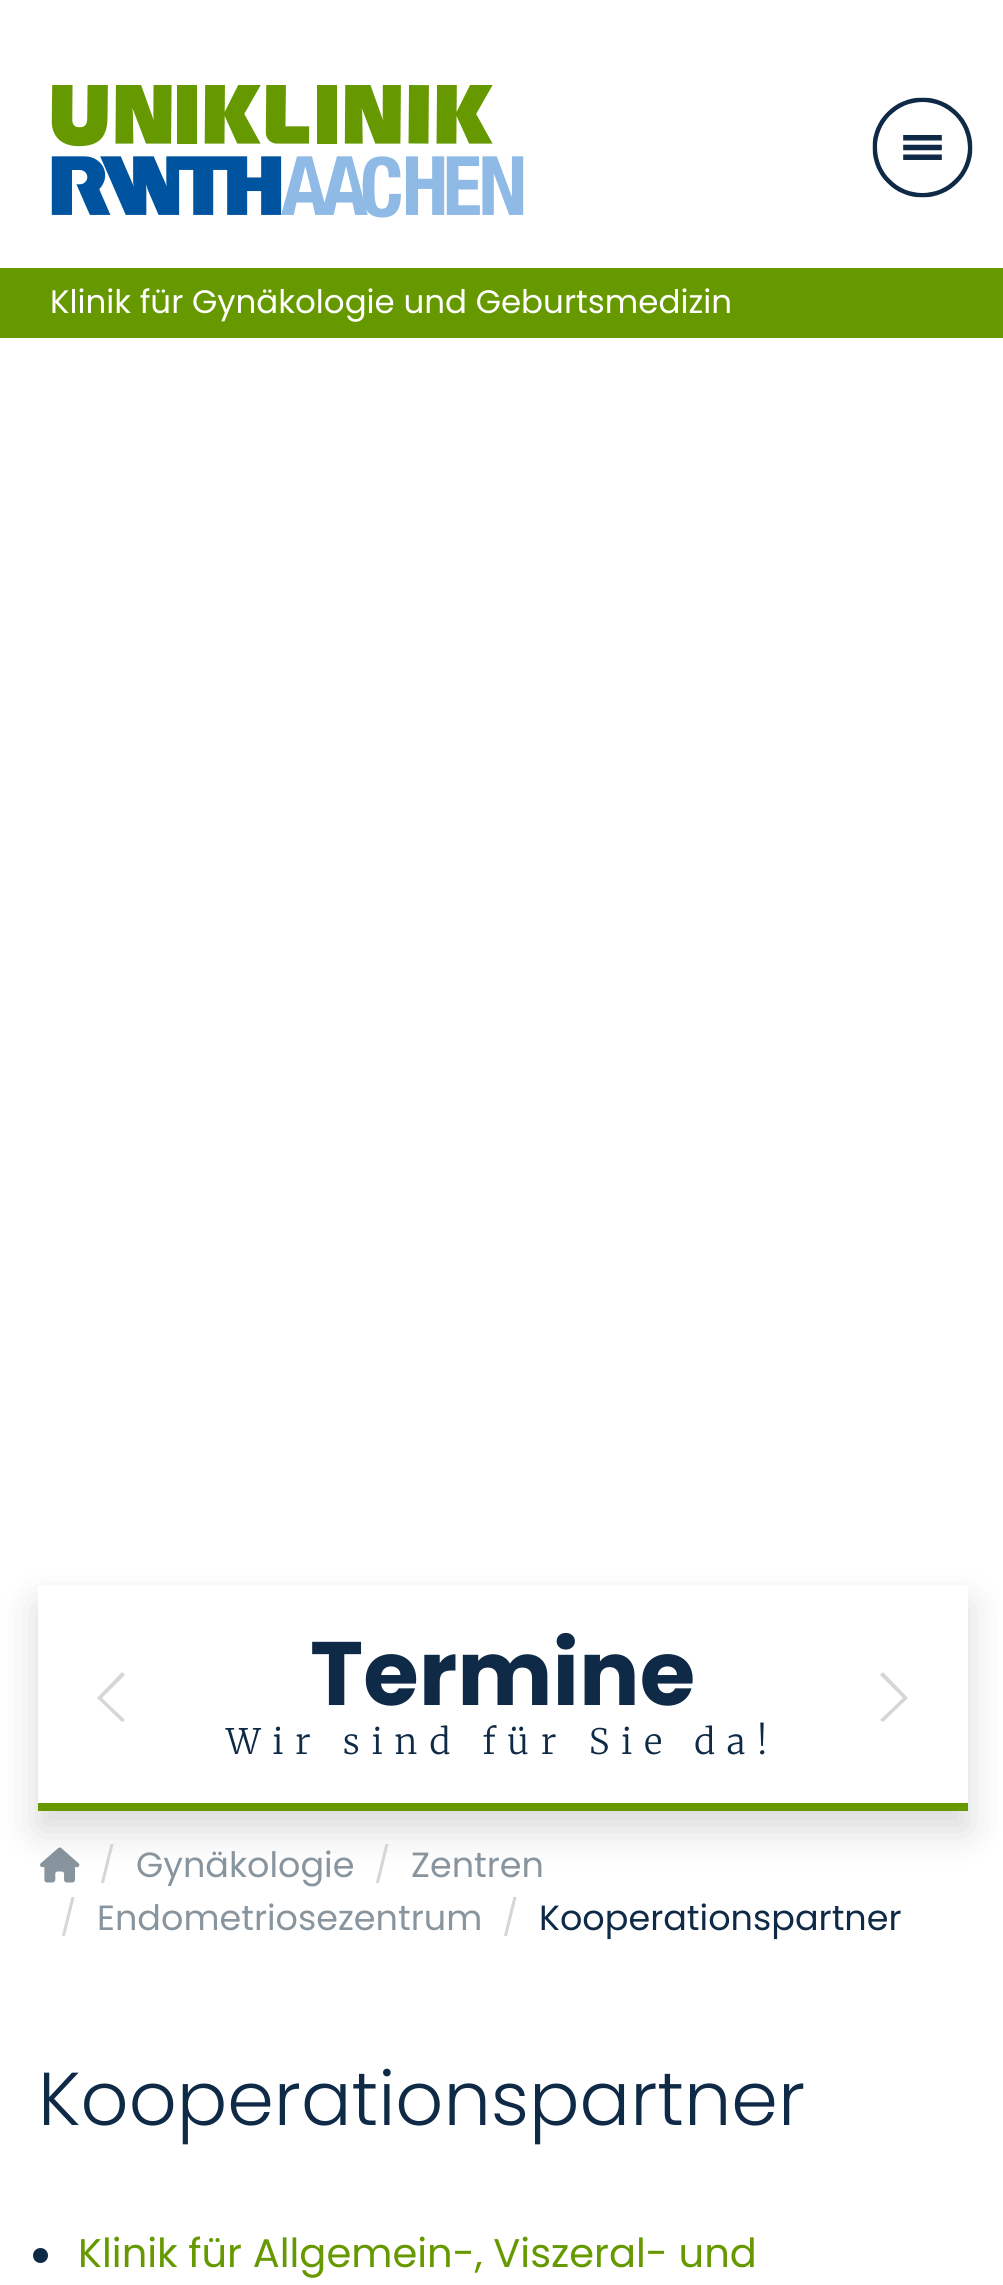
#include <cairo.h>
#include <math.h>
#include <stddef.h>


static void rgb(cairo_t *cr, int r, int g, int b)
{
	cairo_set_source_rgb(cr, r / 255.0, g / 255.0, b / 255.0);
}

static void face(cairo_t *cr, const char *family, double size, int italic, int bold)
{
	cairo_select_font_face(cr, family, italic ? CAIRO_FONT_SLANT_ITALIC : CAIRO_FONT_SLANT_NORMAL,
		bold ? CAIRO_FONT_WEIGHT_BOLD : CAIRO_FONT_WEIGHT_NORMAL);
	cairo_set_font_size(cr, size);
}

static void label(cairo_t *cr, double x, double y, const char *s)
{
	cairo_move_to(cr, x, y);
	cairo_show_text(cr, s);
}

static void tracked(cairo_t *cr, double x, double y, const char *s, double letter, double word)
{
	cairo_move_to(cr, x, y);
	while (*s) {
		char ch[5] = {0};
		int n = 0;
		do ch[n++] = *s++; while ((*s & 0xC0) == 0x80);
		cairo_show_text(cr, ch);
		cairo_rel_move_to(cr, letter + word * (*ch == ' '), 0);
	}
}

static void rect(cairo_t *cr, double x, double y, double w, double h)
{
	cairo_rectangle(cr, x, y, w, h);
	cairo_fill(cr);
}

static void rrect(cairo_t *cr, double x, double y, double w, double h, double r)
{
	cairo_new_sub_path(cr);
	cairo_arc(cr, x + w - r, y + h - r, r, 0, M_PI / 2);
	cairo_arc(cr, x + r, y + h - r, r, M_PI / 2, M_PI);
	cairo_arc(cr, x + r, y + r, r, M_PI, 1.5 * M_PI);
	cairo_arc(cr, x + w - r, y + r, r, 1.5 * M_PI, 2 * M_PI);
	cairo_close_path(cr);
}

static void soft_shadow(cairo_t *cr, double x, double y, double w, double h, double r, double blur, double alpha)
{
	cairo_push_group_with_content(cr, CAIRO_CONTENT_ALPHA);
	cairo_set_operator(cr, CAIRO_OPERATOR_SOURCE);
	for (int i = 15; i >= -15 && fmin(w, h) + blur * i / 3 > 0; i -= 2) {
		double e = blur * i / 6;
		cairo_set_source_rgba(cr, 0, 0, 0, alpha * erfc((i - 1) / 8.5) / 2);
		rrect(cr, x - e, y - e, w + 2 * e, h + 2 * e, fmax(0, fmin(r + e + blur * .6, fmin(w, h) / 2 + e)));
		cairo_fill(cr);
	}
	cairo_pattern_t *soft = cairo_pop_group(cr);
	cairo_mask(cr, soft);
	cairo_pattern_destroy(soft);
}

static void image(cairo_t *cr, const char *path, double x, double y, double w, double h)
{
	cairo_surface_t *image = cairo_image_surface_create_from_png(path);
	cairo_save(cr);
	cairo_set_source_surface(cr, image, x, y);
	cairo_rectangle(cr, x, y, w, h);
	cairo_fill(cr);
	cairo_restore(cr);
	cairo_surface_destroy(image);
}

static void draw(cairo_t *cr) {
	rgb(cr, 255, 255, 255);
	cairo_paint(cr);
	image(cr, "image0.png", 51, 85, 473, 133);
	image(cr, "image1.png", 872, 97, 101, 101);
	rgb(cr, 102, 153, 0);
	rect(cr, 0, 268, 1003, 70);
	face(cr, "Poppins", 32.5, 0, 0);
	rgb(cr, 255, 255, 255);
	label(cr, 50, 313, "Klinik für Gynäkologie und Geburtsmedizin");
	image(cr, "image2.png", 40, 1847, 40, 36);
	rgb(cr, 0, 0, 0);
	soft_shadow(cr, 38, 1605, 930, 225, 0, 20, 0.15);
	rgb(cr, 255, 255, 255);
	rect(cr, 38, 1585, 930, 218);
	rgb(cr, 102, 153, 0);
	rect(cr, 38, 1803, 930, 8);
	face(cr, "Poppins", 90, 0, 1);
	rgb(cr, 15, 42, 70);
	label(cr, 310, 1705, "Termine");
	face(cr, "Merriweather Light", 35, 0, 0);
	tracked(cr, 226, 1754, "Wir sind für Sie da!", 12, 0);
	rgb(cr, 213, 214, 216);
	cairo_new_path(cr);
	cairo_move_to(cr, 97, 1698);
	cairo_line_to(cr, 122, 1672);
	cairo_line_to(cr, 125, 1675);
	cairo_line_to(cr, 102, 1698);
	cairo_line_to(cr, 125, 1720);
	cairo_line_to(cr, 122, 1722);
	cairo_close_path(cr);
	cairo_fill(cr);
	cairo_new_path(cr);
	cairo_move_to(cr, 908, 1698);
	cairo_line_to(cr, 883, 1722);
	cairo_line_to(cr, 880, 1720);
	cairo_line_to(cr, 903, 1698);
	cairo_line_to(cr, 880, 1675);
	cairo_line_to(cr, 883, 1672);
	cairo_close_path(cr);
	cairo_fill(cr);
	face(cr, "Poppins", 35, 0, 0);
	label(cr, 99, 1877, "/");
	rgb(cr, 136, 149, 158);
	label(cr, 136, 1877, "Gynäkologie");
	rgb(cr, 213, 214, 216);
	label(cr, 374, 1877, "/");
	rgb(cr, 136, 149, 158);
	label(cr, 411, 1877, "Zentren");
	rgb(cr, 213, 214, 216);
	label(cr, 60, 1930, "/");
	rgb(cr, 136, 149, 158);
	label(cr, 97, 1930, "Endometriosezentrum");
	rgb(cr, 213, 214, 216);
	label(cr, 502, 1930, "/");
	rgb(cr, 15, 42, 70);
	label(cr, 539, 1930, "Kooperationspartner");
	face(cr, "Poppins Light", 74.9, 0, 0);
	label(cr, 38, 2125, "Kooperationspartner");
	cairo_new_path(cr);
	cairo_arc(cr, 40.5, 2255.5, 7.5, 0, 2 * M_PI);
	cairo_fill(cr);
	face(cr, "Poppins", 40, 0, 0);
	rgb(cr, 102, 153, 0);
	label(cr, 78, 2267, "Klinik für Allgemein-, Viszeral- und");
}

int main(void) {
	cairo_surface_t *surface = cairo_image_surface_create(CAIRO_FORMAT_RGB24, 1003, 2285);
	cairo_t *cr = cairo_create(surface);
	cairo_font_options_t *options = cairo_font_options_create();
	cairo_font_options_set_hint_metrics(options, CAIRO_HINT_METRICS_OFF);
	cairo_font_options_set_hint_style(options, CAIRO_HINT_STYLE_NONE);
	cairo_set_font_options(cr, options);
	cairo_set_miter_limit(cr, 4);
	draw(cr);
	cairo_surface_write_to_png(surface, "render.png");
	cairo_font_options_destroy(options);
	cairo_destroy(cr);
	cairo_surface_destroy(surface);
	return 0;
}
